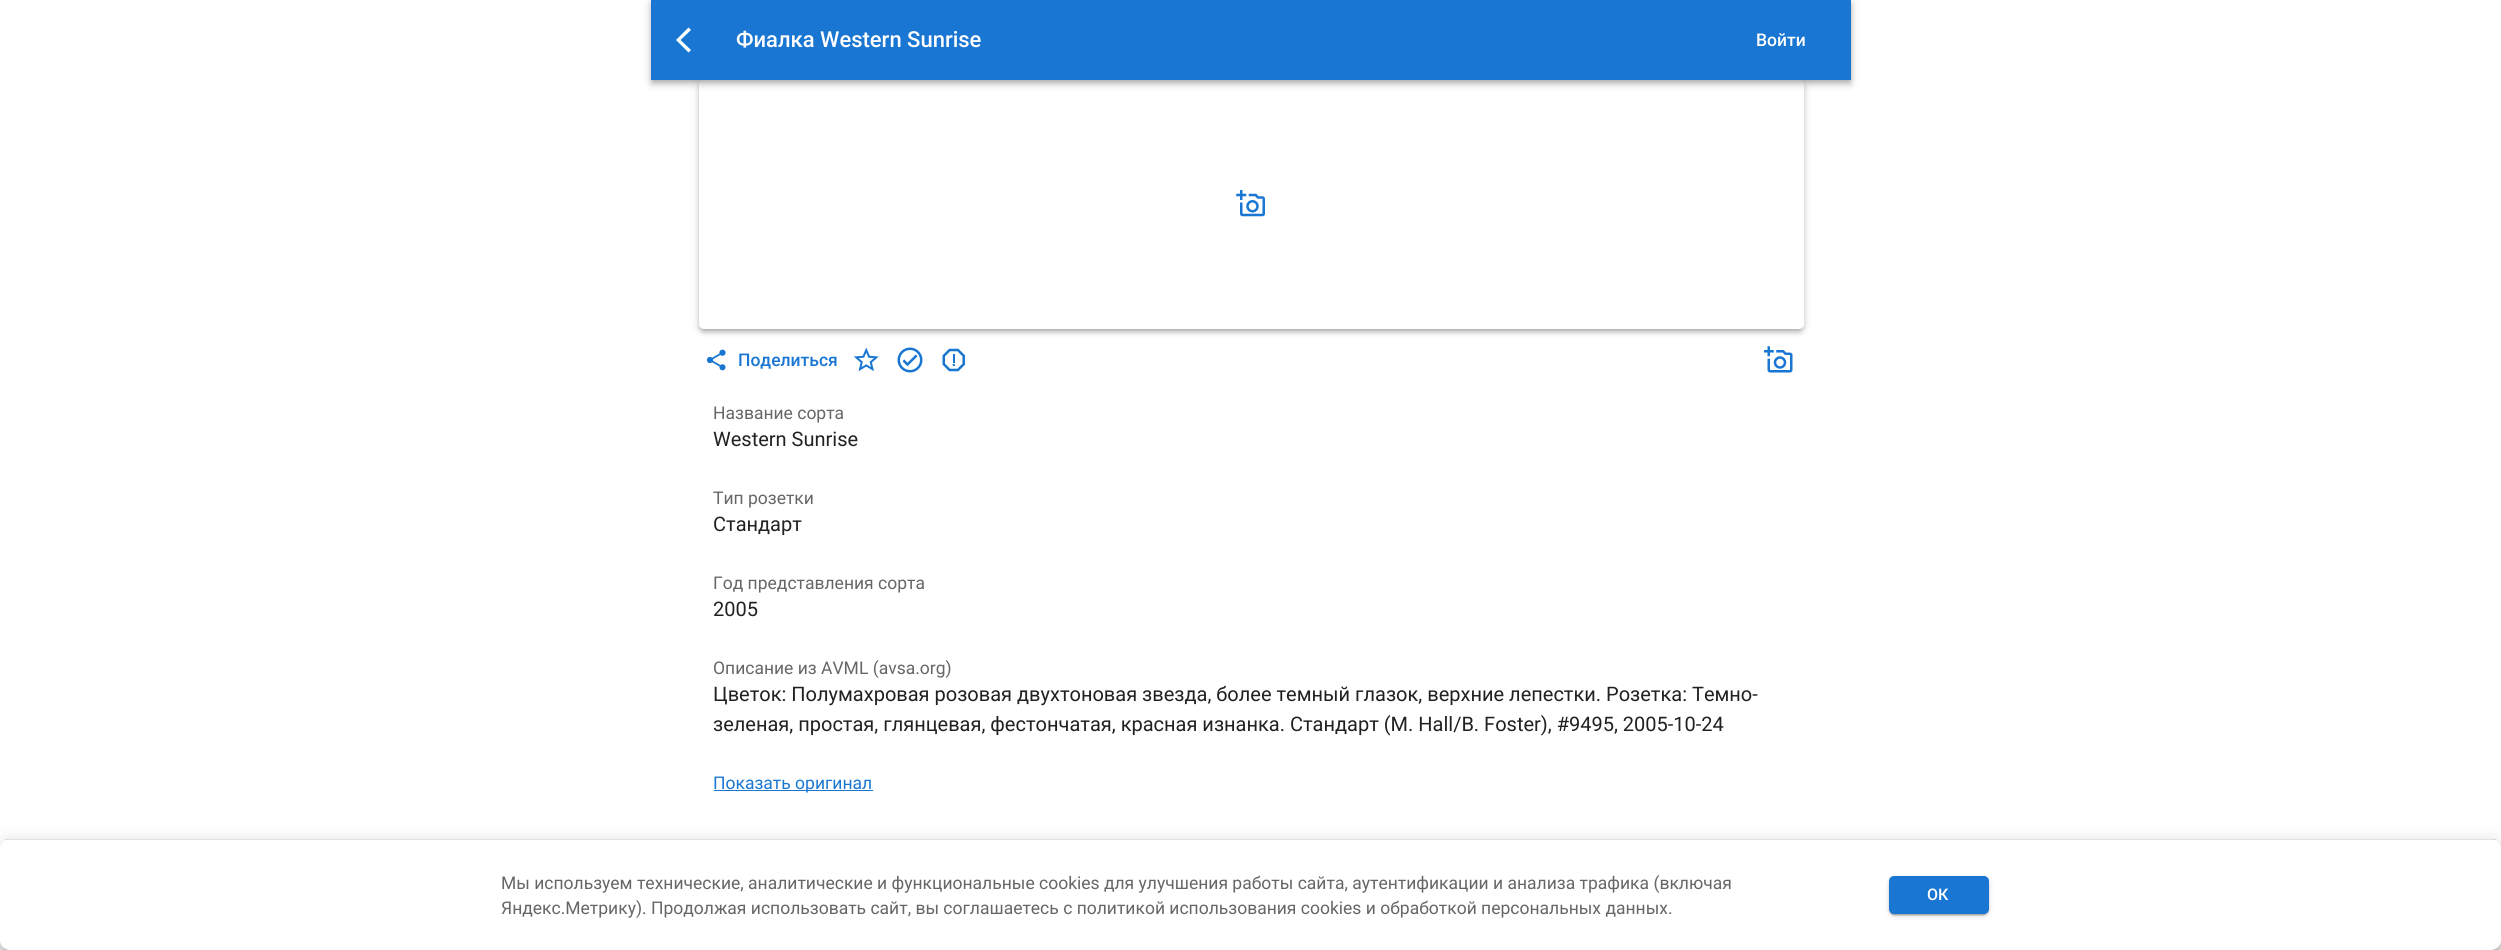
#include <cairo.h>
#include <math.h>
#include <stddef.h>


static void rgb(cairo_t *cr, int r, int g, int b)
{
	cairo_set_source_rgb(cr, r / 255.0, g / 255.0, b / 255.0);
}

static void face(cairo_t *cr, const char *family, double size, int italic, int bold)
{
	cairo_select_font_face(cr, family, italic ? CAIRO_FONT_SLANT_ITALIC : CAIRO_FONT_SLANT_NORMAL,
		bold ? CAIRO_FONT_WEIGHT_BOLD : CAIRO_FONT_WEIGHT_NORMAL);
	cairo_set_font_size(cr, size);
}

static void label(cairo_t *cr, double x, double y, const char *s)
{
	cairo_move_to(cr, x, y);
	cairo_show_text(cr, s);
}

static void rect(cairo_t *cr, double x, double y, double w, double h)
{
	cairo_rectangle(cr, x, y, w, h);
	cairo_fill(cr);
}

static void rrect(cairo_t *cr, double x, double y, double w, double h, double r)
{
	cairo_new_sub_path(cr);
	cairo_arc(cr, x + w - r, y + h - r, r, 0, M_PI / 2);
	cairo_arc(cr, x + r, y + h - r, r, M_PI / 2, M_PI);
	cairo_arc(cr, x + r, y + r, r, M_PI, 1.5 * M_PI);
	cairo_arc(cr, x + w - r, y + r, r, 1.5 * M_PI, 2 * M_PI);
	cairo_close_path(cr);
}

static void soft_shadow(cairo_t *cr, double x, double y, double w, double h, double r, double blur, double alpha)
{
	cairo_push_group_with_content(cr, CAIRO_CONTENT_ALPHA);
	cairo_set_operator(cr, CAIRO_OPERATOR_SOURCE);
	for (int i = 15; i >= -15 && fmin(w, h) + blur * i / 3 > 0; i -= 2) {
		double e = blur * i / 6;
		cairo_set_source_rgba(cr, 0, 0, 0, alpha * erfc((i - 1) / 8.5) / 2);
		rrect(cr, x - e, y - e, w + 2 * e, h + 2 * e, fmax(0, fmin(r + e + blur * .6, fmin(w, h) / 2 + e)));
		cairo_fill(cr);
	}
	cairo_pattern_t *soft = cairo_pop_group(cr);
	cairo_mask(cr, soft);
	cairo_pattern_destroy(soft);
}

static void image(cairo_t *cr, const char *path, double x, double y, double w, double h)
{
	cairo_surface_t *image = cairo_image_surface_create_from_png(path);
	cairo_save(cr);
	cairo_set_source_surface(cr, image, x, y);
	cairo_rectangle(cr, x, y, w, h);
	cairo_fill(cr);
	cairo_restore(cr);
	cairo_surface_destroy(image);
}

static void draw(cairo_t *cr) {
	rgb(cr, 255, 255, 255);
	cairo_paint(cr);
	rgb(cr, 0, 0, 0);
	soft_shadow(cr, 699, 80, 1105, 250, 5, 5, 0.12);
	soft_shadow(cr, 699, 83, 1105, 250, 5, 2.5, 0.14);
	soft_shadow(cr, 701, 85, 1100, 245, 2.5, 2, 0.2);
	rgb(cr, 255, 255, 255);
	rrect(cr, 699, 79, 1105, 250, 5);
	cairo_fill(cr);
	rgb(cr, 0, 0, 0);
	soft_shadow(cr, 651, 1, 1200, 80, 0, 6, 0.12);
	soft_shadow(cr, 651, 5, 1200, 80, 0, 3, 0.14);
	soft_shadow(cr, 653, 4, 1197, 77, 0, 2.5, 0.2);
	rgb(cr, 25, 118, 210);
	rect(cr, 651, 0, 1200, 80);
	rgb(cr, 255, 255, 255);
	cairo_new_path(cr);
	cairo_move_to(cr, 691, 30);
	cairo_line_to(cr, 688.5, 27.5);
	cairo_line_to(cr, 676, 40);
	cairo_line_to(cr, 688.5, 52.5);
	cairo_line_to(cr, 691, 50);
	cairo_line_to(cr, 680.5, 40);
	cairo_close_path(cr);
	cairo_fill(cr);
	face(cr, "Roboto Medium", 22, 0, 0);
	label(cr, 736, 47, "Фиалка Western Sunrise");
	face(cr, "Roboto Medium", 17.5, 0, 0);
	label(cr, 1756, 46, "Войти");
	image(cr, "image0.png", 1236, 190, 29, 27);
	image(cr, "image1.png", 706, 349, 20, 22);
	rgb(cr, 25, 118, 210);
	label(cr, 738, 366, "Поделиться");
	image(cr, "image2.png", 853, 347, 26, 25);
	image(cr, "image3.png", 897, 347, 26, 26);
	image(cr, "image4.png", 942, 348, 23, 24);
	image(cr, "image5.png", 1764, 346, 29, 27);
	face(cr, "Roboto", 17.5, 0, 0);
	rgb(cr, 102, 102, 102);
	label(cr, 713, 419, "Название сорта");
	face(cr, "Roboto", 20, 0, 0);
	rgb(cr, 33, 33, 33);
	label(cr, 713, 446, "Western Sunrise");
	face(cr, "Roboto", 17.5, 0, 0);
	rgb(cr, 102, 102, 102);
	label(cr, 713, 504, "Тип розетки");
	face(cr, "Roboto", 20, 0, 0);
	rgb(cr, 33, 33, 33);
	label(cr, 713, 531, "Стандарт");
	face(cr, "Roboto", 17.5, 0, 0);
	rgb(cr, 102, 102, 102);
	label(cr, 713, 589, "Год представления сорта");
	face(cr, "Roboto", 20, 0, 0);
	rgb(cr, 33, 33, 33);
	label(cr, 713, 616, "2005");
	face(cr, "Roboto", 17.5, 0, 0);
	rgb(cr, 102, 102, 102);
	label(cr, 713, 674, "Описание из AVML (avsa.org)");
	face(cr, "Roboto", 20, 0, 0);
	rgb(cr, 33, 33, 33);
	label(cr, 713, 701, "Цветок: Полумахровая розовая двухтоновая звезда, более темный глазок, верхние лепестки. Розетка: Темно-");
	label(cr, 713, 731, "зеленая, простая, глянцевая, фестончатая, красная изнанка. Стандарт (M. Hall/B. Foster), #9495, 2005-10-24");
	rgb(cr, 25, 118, 210);
	rect(cr, 714, 790, 159, 1);
	face(cr, "Roboto", 17.5, 0, 0);
	label(cr, 713, 789, "Показать оригинал");
	rgb(cr, 0, 0, 0);
	soft_shadow(cr, -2, 840, 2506, 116, 13, 9, 0.12);
	soft_shadow(cr, -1, 848, 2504, 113, 11, 6, 0.14);
	soft_shadow(cr, 4, 849, 2494, 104, 6, 3, 0.2);
	rgb(cr, 255, 255, 255);
	rrect(cr, 0, 839, 2501, 111, 10);
	cairo_fill(cr);
	cairo_set_source_rgba(cr, 0, 0, 0, 0.12);
	rect(cr, 5, 839, 2491, 1);
	rgb(cr, 102, 102, 102);
	label(cr, 501, 889, "Мы используем технические, аналитические и функциональные cookies для улучшения работы сайта, аутентификации и анализа трафика (включая");
	label(cr, 501, 914, "Яндекс.Метрику). Продолжая использовать сайт, вы соглашаетесь с политикой использования cookies и обработкой персональных данных.");
	rgb(cr, 0, 0, 0);
	soft_shadow(cr, 1889, 878, 100, 37, 5, 3, 0.12);
	soft_shadow(cr, 1889, 879, 100, 37, 5, 1, 0.14);
	soft_shadow(cr, 1891, 883, 95, 32, 2.5, 0.5, 0.2);
	rgb(cr, 25, 118, 210);
	rrect(cr, 1889, 876, 100, 38, 5);
	cairo_fill(cr);
	face(cr, "Roboto Medium", 16, 0, 0);
	rgb(cr, 255, 255, 255);
	label(cr, 1927, 900, "ОК");
}

int main(void) {
	cairo_surface_t *surface = cairo_image_surface_create(CAIRO_FORMAT_RGB24, 2501, 950);
	cairo_t *cr = cairo_create(surface);
	cairo_font_options_t *options = cairo_font_options_create();
	cairo_font_options_set_hint_metrics(options, CAIRO_HINT_METRICS_OFF);
	cairo_font_options_set_hint_style(options, CAIRO_HINT_STYLE_NONE);
	cairo_set_font_options(cr, options);
	cairo_set_miter_limit(cr, 4);
	draw(cr);
	cairo_surface_write_to_png(surface, "render.png");
	cairo_font_options_destroy(options);
	cairo_destroy(cr);
	cairo_surface_destroy(surface);
	return 0;
}
